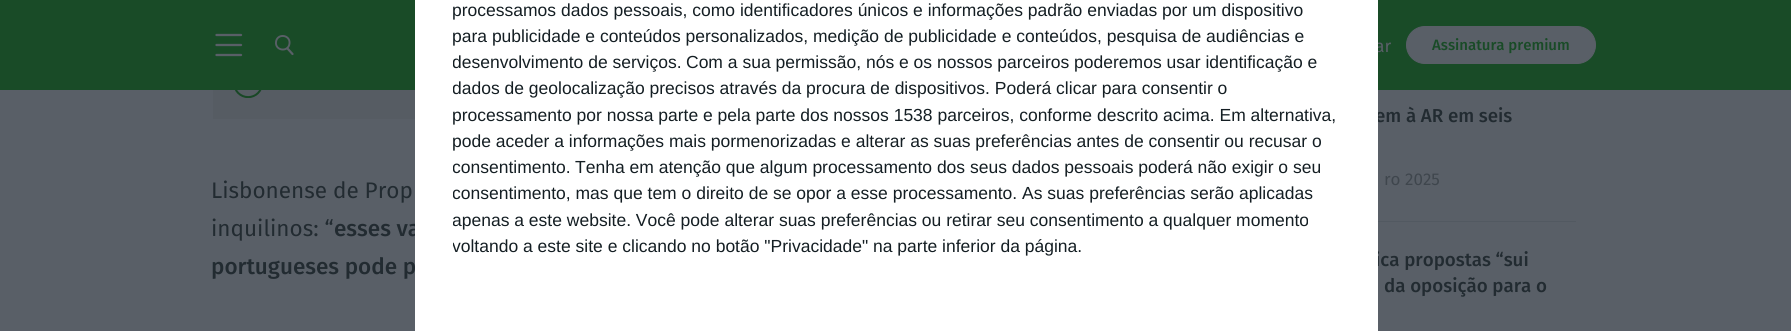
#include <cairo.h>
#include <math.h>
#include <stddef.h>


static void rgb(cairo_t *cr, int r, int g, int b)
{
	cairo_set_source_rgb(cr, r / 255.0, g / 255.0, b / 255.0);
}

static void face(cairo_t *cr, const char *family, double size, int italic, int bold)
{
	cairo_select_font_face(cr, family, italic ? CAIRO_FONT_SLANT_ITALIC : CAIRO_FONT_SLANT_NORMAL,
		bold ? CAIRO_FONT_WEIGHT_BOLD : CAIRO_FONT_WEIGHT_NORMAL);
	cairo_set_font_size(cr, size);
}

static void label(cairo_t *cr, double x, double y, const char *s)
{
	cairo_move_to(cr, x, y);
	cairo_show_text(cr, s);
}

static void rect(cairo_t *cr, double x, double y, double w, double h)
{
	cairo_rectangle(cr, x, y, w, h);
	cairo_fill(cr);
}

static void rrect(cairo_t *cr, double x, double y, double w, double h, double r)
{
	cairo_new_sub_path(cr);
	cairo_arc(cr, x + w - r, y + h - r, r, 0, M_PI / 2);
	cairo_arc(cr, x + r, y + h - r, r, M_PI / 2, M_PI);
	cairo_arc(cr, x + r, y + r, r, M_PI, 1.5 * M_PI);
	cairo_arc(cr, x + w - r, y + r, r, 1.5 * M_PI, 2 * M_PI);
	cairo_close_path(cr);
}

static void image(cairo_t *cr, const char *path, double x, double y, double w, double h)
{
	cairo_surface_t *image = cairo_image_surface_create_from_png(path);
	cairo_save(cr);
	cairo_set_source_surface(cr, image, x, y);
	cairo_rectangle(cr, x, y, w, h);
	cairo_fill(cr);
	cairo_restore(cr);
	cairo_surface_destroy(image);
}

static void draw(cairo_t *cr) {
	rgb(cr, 89, 95, 103);
	cairo_paint(cr);
	rgb(cr, 25, 75, 39);
	rect(cr, 0, 0, 1791, 90);
	face(cr, "Fira Sans", 17.5, 0, 0);
	rgb(cr, 89, 95, 103);
	label(cr, 1375, 52, "ar");
	face(cr, "Fira Sans Medium", 22.5, 0, 0);
	rgb(cr, 34, 43, 49);
	label(cr, 334, 236, "esses va");
	label(cr, 211, 274, "portugueses pode p");
	face(cr, "Fira Sans Medium", 18.75, 0, 0);
	label(cr, 1375, 122, "em à AR em seis");
	label(cr, 1375, 266, "ica propostas “sui");
	rgb(cr, 255, 255, 255);
	rect(cr, 415, 0, 963, 331);
	face(cr, "Liberation Sans", 17.5, 0, 0);
	rgb(cr, 20, 30, 35);
	label(cr, 452, 16, "processamos dados pessoais, como identificadores únicos e informações padrão enviadas por um dispositivo");
	label(cr, 452, 42, "para publicidade e conteúdos personalizados, medição de publicidade e conteúdos, pesquisa de audiências e");
	cairo_save(cr);
	cairo_rectangle(cr, 453, 0, 887, 260);
	cairo_clip(cr);
	label(cr, 452, 68, "desenvolvimento de serviços.");
	cairo_restore(cr);
	label(cr, 686, 68, "Com a sua permissão, nós e os nossos parceiros poderemos usar identificação e");
	cairo_save(cr);
	cairo_rectangle(cr, 453, 0, 887, 260);
	cairo_clip(cr);
	label(cr, 452, 94, "dados de geolocalização precisos através da procura de dispositivos. Poderá clicar para consentir o");
	cairo_restore(cr);
	label(cr, 452, 121, "processamento por nossa parte e pela parte dos nossos 1538 parceiros, conforme descrito acima. Em alternativa,");
	label(cr, 452, 147, "pode aceder a informações mais pormenorizadas e alterar as suas preferências antes de consentir ou recusar o");
	cairo_save(cr);
	cairo_rectangle(cr, 453, 0, 887, 260);
	cairo_clip(cr);
	label(cr, 452, 173, "consentimento.");
	cairo_restore(cr);
	label(cr, 575, 173, "Tenha em atenção que algum processamento dos seus dados pessoais poderá não exigir o seu");
	cairo_save(cr);
	cairo_rectangle(cr, 453, 0, 887, 260);
	cairo_clip(cr);
	label(cr, 452, 199, "consentimento, mas que tem o direito de se opor a esse processamento. As suas preferências serão aplicadas");
	label(cr, 452, 226, "apenas a este website. Você pode alterar suas preferências ou retirar seu consentimento a qualquer momento");
	label(cr, 452, 252, "voltando a este site e clicando no botão \"Privacidade\" na parte inferior da página.");
	cairo_restore(cr);
	cairo_new_path(cr);
	cairo_move_to(cr, 216.5, 35);
	cairo_line_to(cr, 241, 35);
	cairo_move_to(cr, 216.5, 45);
	cairo_line_to(cr, 241, 45);
	cairo_move_to(cr, 216.5, 55);
	cairo_line_to(cr, 241, 55);
	rgb(cr, 89, 95, 103);
	cairo_set_line_width(cr, 2.3);
	cairo_set_line_cap(cr, CAIRO_LINE_CAP_ROUND);
	cairo_set_line_join(cr, CAIRO_LINE_JOIN_ROUND);
	cairo_stroke(cr);
	cairo_new_path(cr);
	cairo_move_to(cr, 276, 42);
	cairo_curve_to(cr, 277, 33, 290.5, 34.5, 289.5, 43.5);
	cairo_curve_to(cr, 288.5, 52.5, 275, 51, 276, 42);
	cairo_close_path(cr);
	cairo_set_line_width(cr, 1.9);
	cairo_stroke(cr);
	cairo_new_path(cr);
	cairo_move_to(cr, 287.5, 48.5);
	cairo_line_to(cr, 292.5, 54);
	cairo_set_line_width(cr, 2.2);
	cairo_stroke(cr);
	rrect(cr, 1406.5, 26.5, 189, 37, 18.5);
	cairo_fill_preserve(cr);
	cairo_set_line_width(cr, 1);
	cairo_set_line_cap(cr, CAIRO_LINE_CAP_BUTT);
	cairo_set_line_join(cr, CAIRO_LINE_JOIN_MITER);
	cairo_stroke(cr);
	face(cr, "Fira Sans Medium", 15, 0, 0);
	rgb(cr, 25, 75, 39);
	label(cr, 1432, 50, "Assinatura premium");
	image(cr, "image0.png", 234, 90, 28, 8);
	cairo_set_source_rgba(cr, 0.098, 0.129, 0.153, 0.05);
	rect(cr, 213, 90, 202, 29);
	face(cr, "Fira Sans", 22.5, 0, 0);
	rgb(cr, 34, 43, 49);
	label(cr, 211, 198, "Lisbonense de Prop");
	label(cr, 211, 236, "inquilinos: “");
	rgb(cr, 82, 89, 97);
	rect(cr, 1378, 221, 198, 1);
	face(cr, "Fira Sans", 17, 0, 0);
	rgb(cr, 63, 70, 77);
	label(cr, 1384, 185, "ro 2025");
	face(cr, "Fira Sans Medium", 18.75, 0, 0);
	rgb(cr, 34, 43, 49);
	label(cr, 1384, 292, "da oposição para o");
}

int main(void) {
	cairo_surface_t *surface = cairo_image_surface_create(CAIRO_FORMAT_RGB24, 1791, 331);
	cairo_t *cr = cairo_create(surface);
	cairo_font_options_t *options = cairo_font_options_create();
	cairo_font_options_set_hint_metrics(options, CAIRO_HINT_METRICS_OFF);
	cairo_font_options_set_hint_style(options, CAIRO_HINT_STYLE_NONE);
	cairo_set_font_options(cr, options);
	cairo_set_miter_limit(cr, 4);
	draw(cr);
	cairo_surface_write_to_png(surface, "render.png");
	cairo_font_options_destroy(options);
	cairo_destroy(cr);
	cairo_surface_destroy(surface);
	return 0;
}
